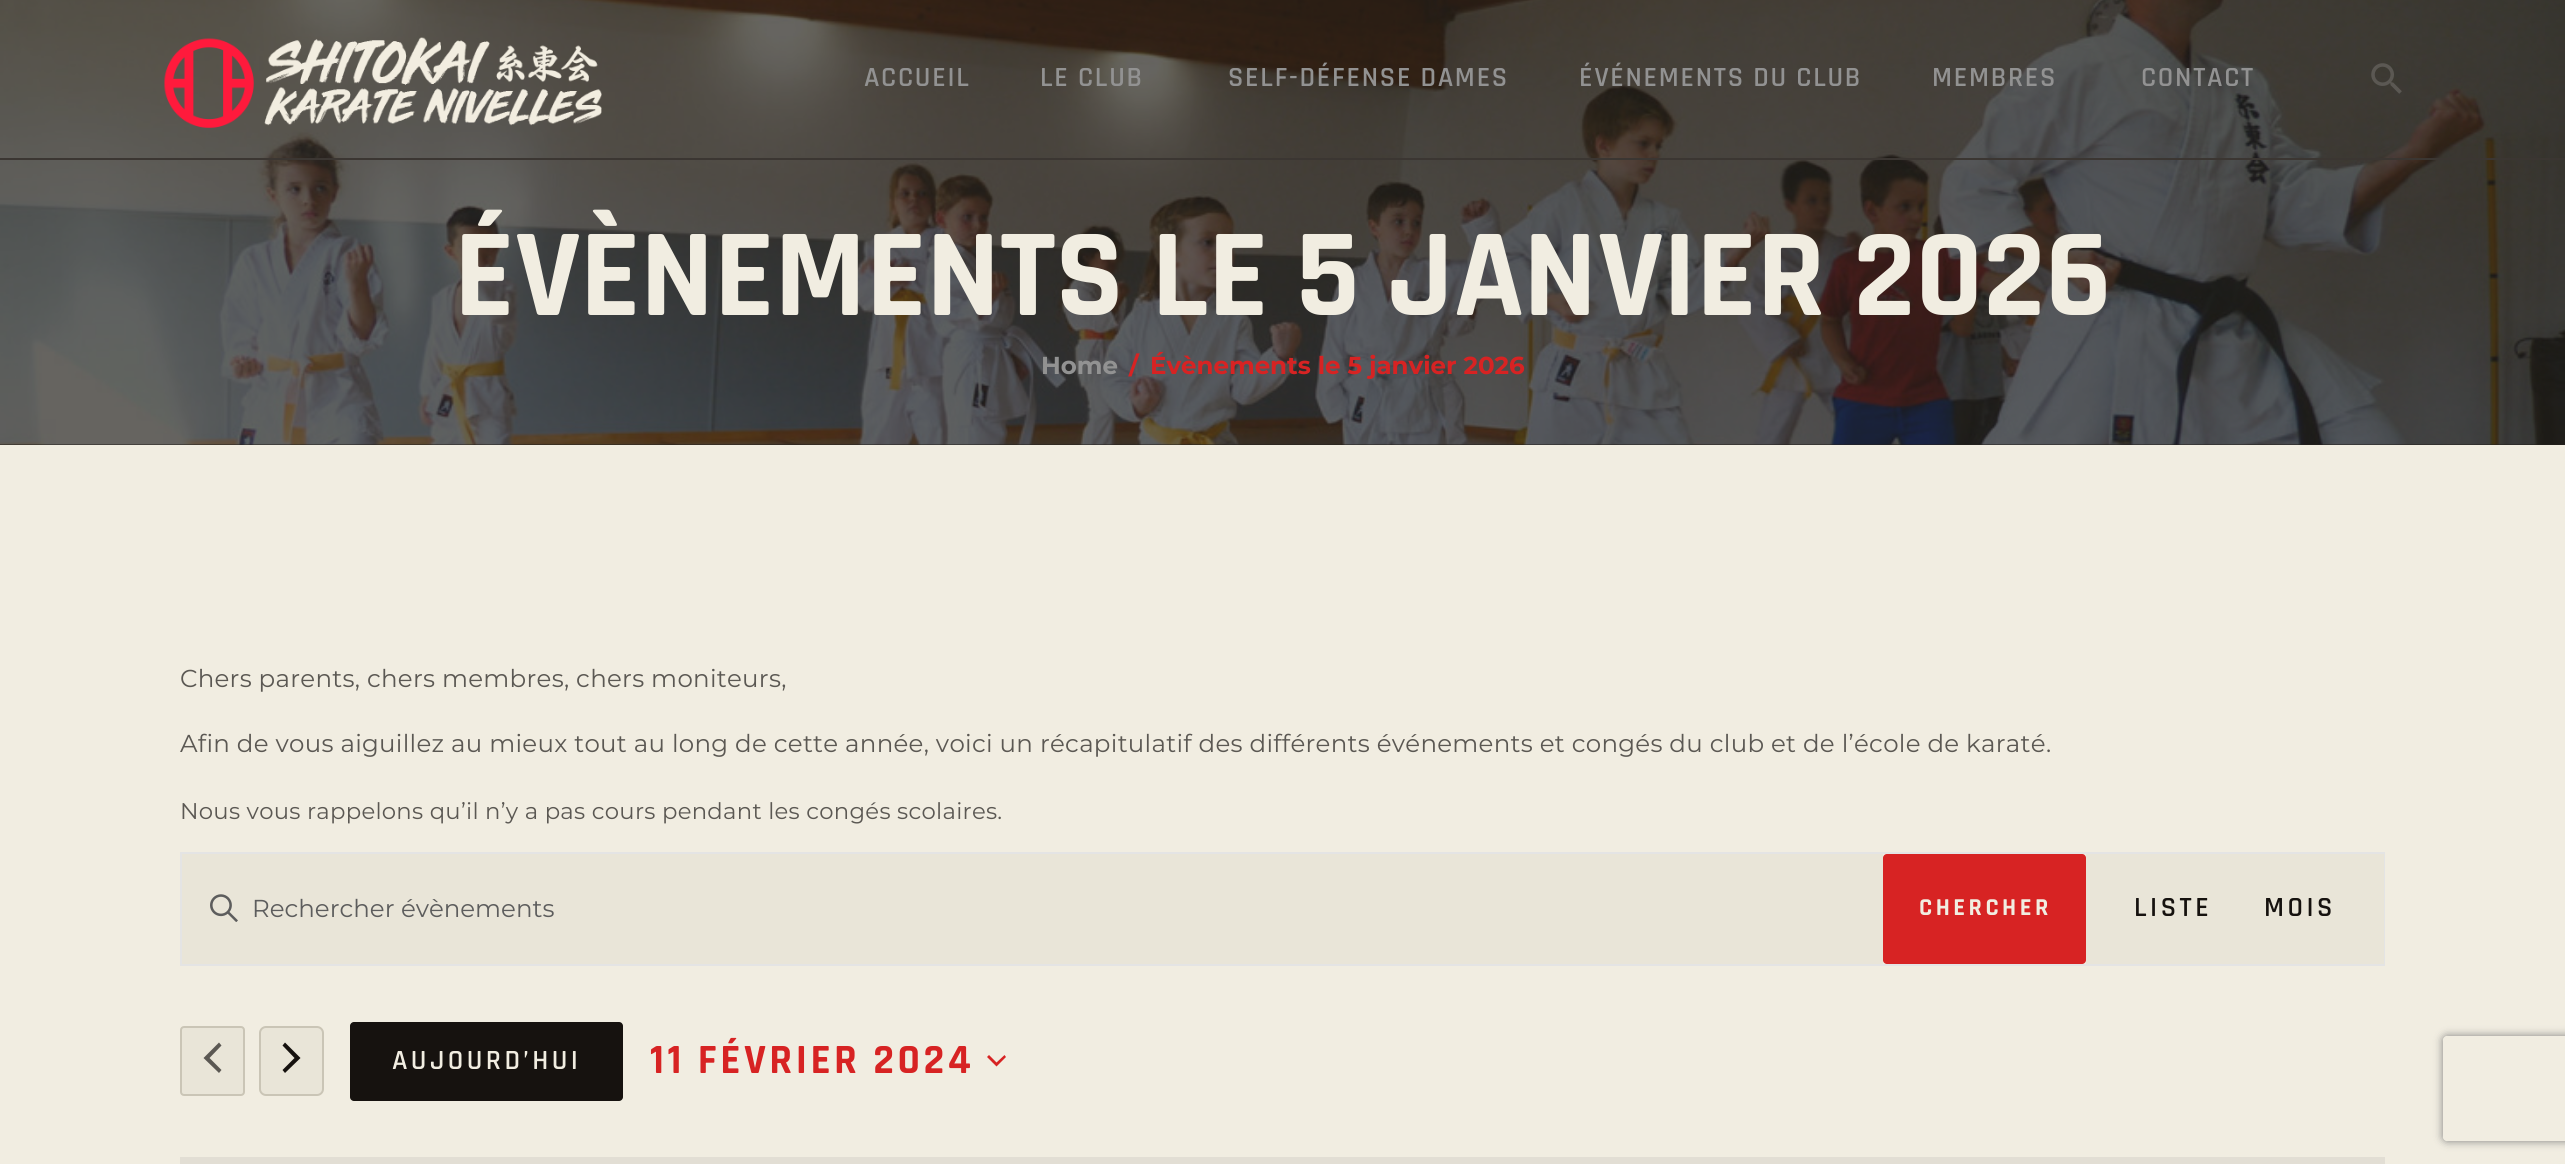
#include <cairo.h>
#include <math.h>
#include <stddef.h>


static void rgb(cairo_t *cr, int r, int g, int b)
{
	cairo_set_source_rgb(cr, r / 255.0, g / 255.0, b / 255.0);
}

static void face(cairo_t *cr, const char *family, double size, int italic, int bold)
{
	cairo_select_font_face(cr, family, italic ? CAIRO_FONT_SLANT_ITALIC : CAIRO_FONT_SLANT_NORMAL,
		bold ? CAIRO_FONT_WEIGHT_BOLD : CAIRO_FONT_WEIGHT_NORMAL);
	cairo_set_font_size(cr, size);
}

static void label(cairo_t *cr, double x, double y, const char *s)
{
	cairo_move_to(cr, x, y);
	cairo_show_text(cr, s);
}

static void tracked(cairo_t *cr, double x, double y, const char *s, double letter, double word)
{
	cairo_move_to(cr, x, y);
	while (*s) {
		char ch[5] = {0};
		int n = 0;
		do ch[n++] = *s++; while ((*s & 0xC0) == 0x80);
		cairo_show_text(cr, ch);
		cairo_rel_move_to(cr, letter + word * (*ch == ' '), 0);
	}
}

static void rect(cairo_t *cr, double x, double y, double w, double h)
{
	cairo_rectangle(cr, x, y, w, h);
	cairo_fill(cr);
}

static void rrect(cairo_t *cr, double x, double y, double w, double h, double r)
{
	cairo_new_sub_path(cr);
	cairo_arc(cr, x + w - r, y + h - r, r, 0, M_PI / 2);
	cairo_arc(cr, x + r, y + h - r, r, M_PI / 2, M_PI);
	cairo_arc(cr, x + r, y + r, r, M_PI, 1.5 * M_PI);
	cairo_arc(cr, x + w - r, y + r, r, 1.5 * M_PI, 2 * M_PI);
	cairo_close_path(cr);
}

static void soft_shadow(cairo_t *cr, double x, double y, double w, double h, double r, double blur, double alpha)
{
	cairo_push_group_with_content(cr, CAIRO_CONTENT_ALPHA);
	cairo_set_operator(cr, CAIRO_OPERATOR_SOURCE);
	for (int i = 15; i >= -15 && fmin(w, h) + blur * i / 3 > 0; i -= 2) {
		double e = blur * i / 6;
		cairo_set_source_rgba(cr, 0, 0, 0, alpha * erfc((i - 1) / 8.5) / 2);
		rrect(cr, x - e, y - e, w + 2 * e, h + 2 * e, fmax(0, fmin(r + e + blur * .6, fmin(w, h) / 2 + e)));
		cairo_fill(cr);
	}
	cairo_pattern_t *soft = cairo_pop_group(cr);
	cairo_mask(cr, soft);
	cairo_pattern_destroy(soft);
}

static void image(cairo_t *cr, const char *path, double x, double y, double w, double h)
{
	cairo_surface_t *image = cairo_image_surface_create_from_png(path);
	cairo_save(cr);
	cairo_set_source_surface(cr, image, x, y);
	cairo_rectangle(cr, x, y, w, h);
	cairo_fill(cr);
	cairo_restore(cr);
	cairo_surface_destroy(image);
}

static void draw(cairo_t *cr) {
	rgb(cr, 241, 237, 225);
	cairo_paint(cr);
	rgb(cr, 36, 33, 28);
	rect(cr, 0, 444, 2565, 1);
	image(cr, "image0.png", 0, 0, 2565, 445);
	rgb(cr, 59, 54, 50);
	rect(cr, 0, 158, 2565, 2);
	image(cr, "image1.png", 164, 37, 438, 91);
	face(cr, "Rajdhani SemiBold", 28, 0, 0);
	rgb(cr, 146, 146, 146);
	tracked(cr, 864, 86, "ACCUEIL", 1.75, 0);
	tracked(cr, 1040, 86, "LE CLUB", 1.75, 0);
	tracked(cr, 1228, 86, "SELF-DÉFENSE DAMES", 1.75, 0);
	tracked(cr, 1579, 86, "ÉVÉNEMENTS DU CLUB", 1.75, 0);
	tracked(cr, 1932, 86, "MEMBRES", 1.75, 0);
	tracked(cr, 2141, 86, "CONTACT", 1.75, 0);
	image(cr, "image2.png", 2371, 63, 31, 31);
	face(cr, "Rajdhani", 126, 0, 1);
	rgb(cr, 241, 237, 225);
	label(cr, 454, 315, "ÉVÈNEMENTS LE 5 JANVIER 2026");
	face(cr, "Montserrat", 24.5, 0, 1);
	rgb(cr, 146, 146, 146);
	label(cr, 1041, 374, "Home");
	rgb(cr, 215, 35, 35);
	label(cr, 1129, 374, "/");
	label(cr, 1150, 374, "Évènements le 5 janvier 2026");
	face(cr, "Montserrat", 24.5, 0, 0);
	rgb(cr, 91, 88, 83);
	tracked(cr, 180, 687, "Chers parents, chers membres, chers moniteurs,", 0.28, 0);
	tracked(cr, 180, 752, "Afin de vous aiguillez au mieux tout au long de cette année, voici un récapitulatif des différents événements et congés du club et de l’école de karaté.", 0.28, 0);
	face(cr, "Montserrat", 22.75, 0, 0);
	tracked(cr, 180, 819, "Nous vous rappelons qu’il n’y a pas cours pendant les congés scolaires.", 0.28, 0);
	cairo_rectangle(cr, 181, 853, 2203, 112);
	rgb(cr, 228, 228, 228);
	cairo_stroke(cr);
	rgb(cr, 233, 229, 216);
	rect(cr, 182, 854, 1701, 110);
	image(cr, "image3.png", 210, 894, 28, 28);
	face(cr, "Montserrat", 24.5, 0, 0);
	rgb(cr, 93, 93, 93);
	label(cr, 252, 917, "Rechercher évènements");
	rgb(cr, 215, 35, 35);
	rrect(cr, 1883, 854, 203, 110, 4);
	cairo_fill(cr);
	face(cr, "Rajdhani", 24.5, 0, 1);
	rgb(cr, 241, 237, 225);
	tracked(cr, 1919, 915, "CHERCHER", 3.5, 0);
	rgb(cr, 233, 229, 216);
	rect(cr, 2086, 854, 298, 110);
	face(cr, "Rajdhani SemiBold", 28, 0, 0);
	rgb(cr, 22, 18, 15);
	tracked(cr, 2134, 916, "LISTE", 3.5, 0);
	tracked(cr, 2264, 916, "MOIS", 3.5, 0);
	rgb(cr, 233, 229, 216);
	rrect(cr, 181, 1027, 63, 68, 3);
	cairo_fill_preserve(cr);
	rgb(cr, 202, 197, 182);
	cairo_stroke(cr);
	rgb(cr, 91, 88, 83);
	cairo_new_path(cr);
	cairo_move_to(cr, 221.5, 1070);
	cairo_line_to(cr, 219, 1073);
	cairo_line_to(cr, 203.5, 1058);
	cairo_line_to(cr, 219, 1042.5);
	cairo_line_to(cr, 221.5, 1045.5);
	cairo_line_to(cr, 209.5, 1058);
	cairo_close_path(cr);
	cairo_fill(cr);
	rgb(cr, 233, 229, 216);
	rrect(cr, 260, 1027, 63, 68, 6);
	cairo_fill_preserve(cr);
	rgb(cr, 202, 197, 182);
	cairo_stroke(cr);
	rgb(cr, 22, 18, 15);
	cairo_new_path(cr);
	cairo_move_to(cr, 282.5, 1045.5);
	cairo_line_to(cr, 285, 1042.5);
	cairo_line_to(cr, 300.5, 1058);
	cairo_line_to(cr, 285, 1073);
	cairo_line_to(cr, 282.5, 1070);
	cairo_line_to(cr, 294.5, 1058);
	cairo_close_path(cr);
	cairo_fill(cr);
	rrect(cr, 350, 1022, 273, 79, 4);
	cairo_fill(cr);
	rgb(cr, 241, 237, 225);
	tracked(cr, 392, 1069, "AUJOURD’HUI", 3.5, 0);
	face(cr, "Rajdhani", 42, 0, 1);
	rgb(cr, 215, 35, 35);
	tracked(cr, 650, 1073, "11 FÉVRIER 2024", 3.5, 0);
	cairo_set_fill_rule(cr, CAIRO_FILL_RULE_EVEN_ODD);
	cairo_new_path(cr);
	cairo_move_to(cr, 989, 1055);
	cairo_line_to(cr, 996.5, 1062.5);
	cairo_line_to(cr, 1004.5, 1055);
	cairo_line_to(cr, 1006, 1057);
	cairo_line_to(cr, 996.5, 1066.5);
	cairo_line_to(cr, 987, 1057);
	cairo_close_path(cr);
	cairo_fill(cr);
	rgb(cr, 226, 222, 212);
	rect(cr, 180, 1157, 2205, 7);
	cairo_save(cr);
	cairo_new_path(cr);
	cairo_move_to(cr, 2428, 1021);
	cairo_line_to(cr, 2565, 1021);
	cairo_line_to(cr, 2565, 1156);
	cairo_line_to(cr, 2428, 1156);
	cairo_close_path(cr);
	cairo_move_to(cr, 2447, 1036);
	cairo_line_to(cr, 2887, 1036);
	cairo_curve_to(cr, 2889, 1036, 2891, 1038, 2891, 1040);
	cairo_line_to(cr, 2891, 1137);
	cairo_curve_to(cr, 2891, 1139, 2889, 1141, 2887, 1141);
	cairo_line_to(cr, 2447, 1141);
	cairo_curve_to(cr, 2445, 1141, 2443, 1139, 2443, 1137);
	cairo_line_to(cr, 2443, 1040);
	cairo_curve_to(cr, 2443, 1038, 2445, 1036, 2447, 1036);
	cairo_close_path(cr);
	cairo_clip(cr);
	rgb(cr, 128, 128, 128);
	soft_shadow(cr, 2443, 1036, 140, 105, 4, 4.5, 1);
	cairo_restore(cr);
}

int main(void) {
	cairo_surface_t *surface = cairo_image_surface_create(CAIRO_FORMAT_RGB24, 2565, 1164);
	cairo_t *cr = cairo_create(surface);
	cairo_font_options_t *options = cairo_font_options_create();
	cairo_font_options_set_hint_metrics(options, CAIRO_HINT_METRICS_OFF);
	cairo_font_options_set_hint_style(options, CAIRO_HINT_STYLE_NONE);
	cairo_set_font_options(cr, options);
	cairo_set_miter_limit(cr, 4);
	draw(cr);
	cairo_surface_write_to_png(surface, "render.png");
	cairo_font_options_destroy(options);
	cairo_destroy(cr);
	cairo_surface_destroy(surface);
	return 0;
}
